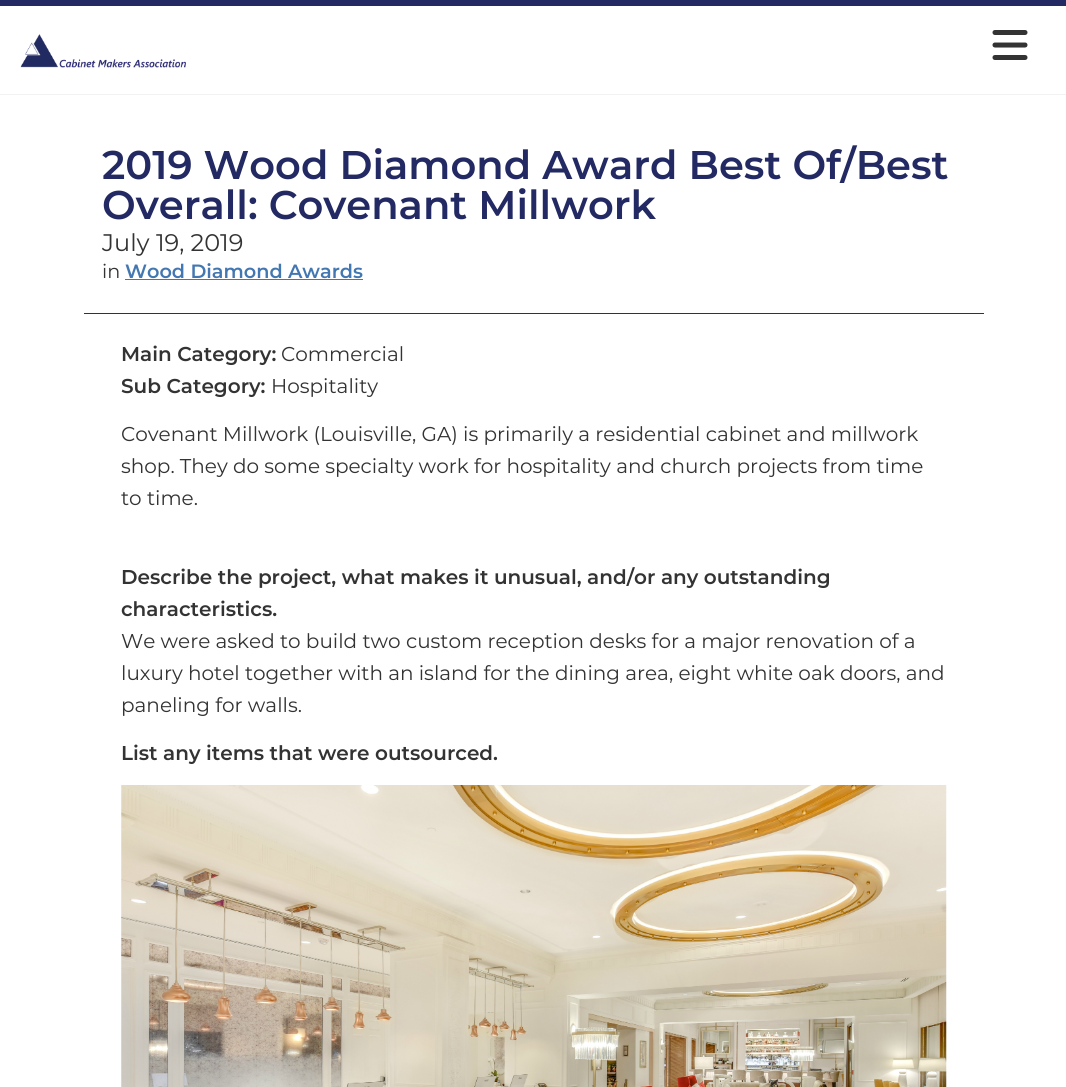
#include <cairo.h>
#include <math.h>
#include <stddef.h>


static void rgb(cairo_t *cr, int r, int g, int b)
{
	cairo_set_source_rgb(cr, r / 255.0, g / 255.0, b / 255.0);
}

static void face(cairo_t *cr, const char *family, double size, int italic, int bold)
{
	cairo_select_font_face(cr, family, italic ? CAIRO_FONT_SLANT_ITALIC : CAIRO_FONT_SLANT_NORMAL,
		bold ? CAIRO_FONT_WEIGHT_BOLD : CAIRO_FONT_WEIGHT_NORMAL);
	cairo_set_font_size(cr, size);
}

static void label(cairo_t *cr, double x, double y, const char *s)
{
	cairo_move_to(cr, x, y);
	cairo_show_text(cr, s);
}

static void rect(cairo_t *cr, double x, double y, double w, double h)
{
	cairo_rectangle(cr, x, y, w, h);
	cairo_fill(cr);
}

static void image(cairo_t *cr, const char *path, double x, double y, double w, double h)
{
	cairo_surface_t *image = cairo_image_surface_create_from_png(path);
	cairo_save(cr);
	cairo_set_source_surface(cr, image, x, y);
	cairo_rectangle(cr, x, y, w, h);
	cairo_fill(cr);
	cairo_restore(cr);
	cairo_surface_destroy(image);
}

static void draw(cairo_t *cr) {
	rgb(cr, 255, 255, 255);
	cairo_paint(cr);
	rgb(cr, 35, 42, 99);
	rect(cr, 0, 0, 1066, 6);
	rgb(cr, 242, 242, 242);
	rect(cr, 0, 94, 1066, 1);
	image(cr, "image0.png", 20, 34, 166, 34);
	image(cr, "image1.png", 992, 30, 36, 30);
	rgb(cr, 51, 51, 51);
	rect(cr, 84, 313, 900, 1);
	face(cr, "Montserrat SemiBold", 40, 0, 0);
	rgb(cr, 35, 42, 99);
	label(cr, 102, 179, "2019 Wood Diamond Award Best Of/Best");
	label(cr, 102, 219, "Overall: Covenant Millwork");
	face(cr, "Montserrat", 24, 0, 0);
	rgb(cr, 51, 51, 51);
	label(cr, 102, 251, "July 19, 2019");
	face(cr, "Montserrat", 19.25, 0, 0);
	label(cr, 102, 278, "in");
	face(cr, "Montserrat SemiBold", 19.25, 0, 0);
	rgb(cr, 67, 119, 177);
	label(cr, 125, 278, "Wood Diamond Awards");
	rect(cr, 125, 279, 238, 1);
	face(cr, "Montserrat SemiBold", 20, 0, 0);
	rgb(cr, 51, 51, 51);
	label(cr, 121, 361, "Main Category:");
	face(cr, "Montserrat", 20, 0, 0);
	label(cr, 281, 361, "Commercial");
	face(cr, "Montserrat SemiBold", 20, 0, 0);
	label(cr, 121, 393, "Sub Category:");
	face(cr, "Montserrat", 20, 0, 0);
	label(cr, 271, 393, "Hospitality");
	label(cr, 121, 441, "Covenant Millwork (Louisville, GA) is primarily a residential cabinet and millwork");
	label(cr, 121, 473, "shop. They do some specialty work for hospitality and church projects from time");
	label(cr, 121, 505, "to time.");
	face(cr, "Montserrat SemiBold", 20, 0, 0);
	label(cr, 121, 584, "Describe the project, what makes it unusual, and/or any outstanding");
	label(cr, 121, 616, "characteristics.");
	face(cr, "Montserrat", 20, 0, 0);
	label(cr, 121, 648, "We were asked to build two custom reception desks for a major renovation of a");
	label(cr, 121, 680, "luxury hotel together with an island for the dining area, eight white oak doors, and");
	label(cr, 121, 712, "paneling for walls.");
	face(cr, "Montserrat SemiBold", 20, 0, 0);
	label(cr, 121, 760, "List any items that were outsourced.");
	image(cr, "image2.png", 121, 785, 826, 302);
}

int main(void) {
	cairo_surface_t *surface = cairo_image_surface_create(CAIRO_FORMAT_RGB24, 1066, 1087);
	cairo_t *cr = cairo_create(surface);
	cairo_font_options_t *options = cairo_font_options_create();
	cairo_font_options_set_hint_metrics(options, CAIRO_HINT_METRICS_OFF);
	cairo_font_options_set_hint_style(options, CAIRO_HINT_STYLE_NONE);
	cairo_set_font_options(cr, options);
	cairo_set_miter_limit(cr, 4);
	draw(cr);
	cairo_surface_write_to_png(surface, "render.png");
	cairo_font_options_destroy(options);
	cairo_destroy(cr);
	cairo_surface_destroy(surface);
	return 0;
}
